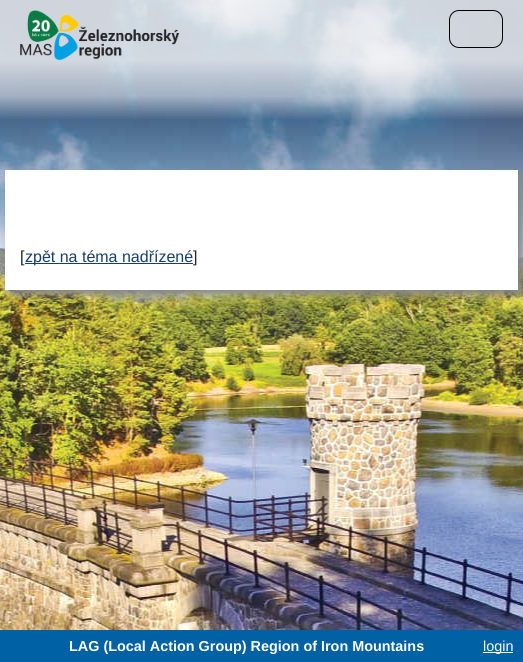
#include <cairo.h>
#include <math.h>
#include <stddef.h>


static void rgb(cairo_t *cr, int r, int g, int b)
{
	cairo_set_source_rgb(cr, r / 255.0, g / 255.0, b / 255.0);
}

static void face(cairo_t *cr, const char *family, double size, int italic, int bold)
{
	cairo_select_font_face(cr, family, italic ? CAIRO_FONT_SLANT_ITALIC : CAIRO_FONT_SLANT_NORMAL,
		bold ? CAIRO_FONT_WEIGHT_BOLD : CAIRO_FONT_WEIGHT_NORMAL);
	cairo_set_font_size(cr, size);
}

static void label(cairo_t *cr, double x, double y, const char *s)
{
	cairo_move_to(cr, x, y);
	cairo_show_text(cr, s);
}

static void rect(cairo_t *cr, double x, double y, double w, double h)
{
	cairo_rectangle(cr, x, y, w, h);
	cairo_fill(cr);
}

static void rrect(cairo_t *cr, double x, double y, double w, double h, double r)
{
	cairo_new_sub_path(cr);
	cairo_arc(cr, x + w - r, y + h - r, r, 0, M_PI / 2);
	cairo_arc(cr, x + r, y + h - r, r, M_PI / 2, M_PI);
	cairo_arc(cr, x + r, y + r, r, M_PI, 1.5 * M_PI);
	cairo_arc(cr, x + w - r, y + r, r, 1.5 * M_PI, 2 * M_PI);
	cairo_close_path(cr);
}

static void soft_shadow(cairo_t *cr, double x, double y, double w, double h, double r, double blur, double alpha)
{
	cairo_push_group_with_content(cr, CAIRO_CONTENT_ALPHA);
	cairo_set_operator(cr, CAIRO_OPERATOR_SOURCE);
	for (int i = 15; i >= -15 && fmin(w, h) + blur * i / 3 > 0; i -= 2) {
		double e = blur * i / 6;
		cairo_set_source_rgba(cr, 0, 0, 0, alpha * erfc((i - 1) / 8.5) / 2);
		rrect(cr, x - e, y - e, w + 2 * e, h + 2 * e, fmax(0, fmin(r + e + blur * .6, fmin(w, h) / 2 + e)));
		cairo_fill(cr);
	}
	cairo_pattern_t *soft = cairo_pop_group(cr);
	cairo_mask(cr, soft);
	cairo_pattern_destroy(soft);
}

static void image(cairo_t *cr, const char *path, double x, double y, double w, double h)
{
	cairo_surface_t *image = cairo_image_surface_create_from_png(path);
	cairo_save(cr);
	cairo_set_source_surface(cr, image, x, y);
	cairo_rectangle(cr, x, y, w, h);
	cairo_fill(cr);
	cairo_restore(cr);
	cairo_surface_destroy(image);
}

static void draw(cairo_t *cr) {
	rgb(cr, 255, 255, 255);
	cairo_paint(cr);
	image(cr, "image0.png", 0, 0, 523, 630);
	image(cr, "image1.png", 20, 10, 159, 50);
	rrect(cr, 449.5, 10.5, 53, 37, 9.5);
	rgb(cr, 0, 0, 0);
	cairo_set_line_width(cr, 1);
	cairo_stroke(cr);
	rgb(cr, 136, 136, 136);
	soft_shadow(cr, 10, 175, 513, 120, 0, 4, 1);
	rgb(cr, 255, 255, 255);
	rect(cr, 5, 170, 513, 120);
	face(cr, "Liberation Sans", 16, 0, 0);
	rgb(cr, 33, 37, 41);
	label(cr, 20, 262, "[");
	rgb(cr, 22, 63, 109);
	rect(cr, 25, 263, 168, 1);
	label(cr, 25, 262, "zpět na téma nadřízené");
	rgb(cr, 33, 37, 41);
	label(cr, 193, 262, "]");
	rgb(cr, 0, 97, 164);
	rect(cr, 0, 630, 523, 32);
	face(cr, "Liberation Sans", 14.4, 0, 1);
	rgb(cr, 255, 255, 255);
	label(cr, 69, 651, "LAG (Local Action Group) Region of Iron Mountains");
	rect(cr, 483, 652, 30, 1);
	face(cr, "Liberation Sans", 14.4, 0, 0);
	label(cr, 483, 651, "login");
}

int main(void) {
	cairo_surface_t *surface = cairo_image_surface_create(CAIRO_FORMAT_RGB24, 523, 662);
	cairo_t *cr = cairo_create(surface);
	cairo_font_options_t *options = cairo_font_options_create();
	cairo_font_options_set_hint_metrics(options, CAIRO_HINT_METRICS_OFF);
	cairo_font_options_set_hint_style(options, CAIRO_HINT_STYLE_NONE);
	cairo_set_font_options(cr, options);
	cairo_set_miter_limit(cr, 4);
	draw(cr);
	cairo_surface_write_to_png(surface, "render.png");
	cairo_font_options_destroy(options);
	cairo_destroy(cr);
	cairo_surface_destroy(surface);
	return 0;
}
